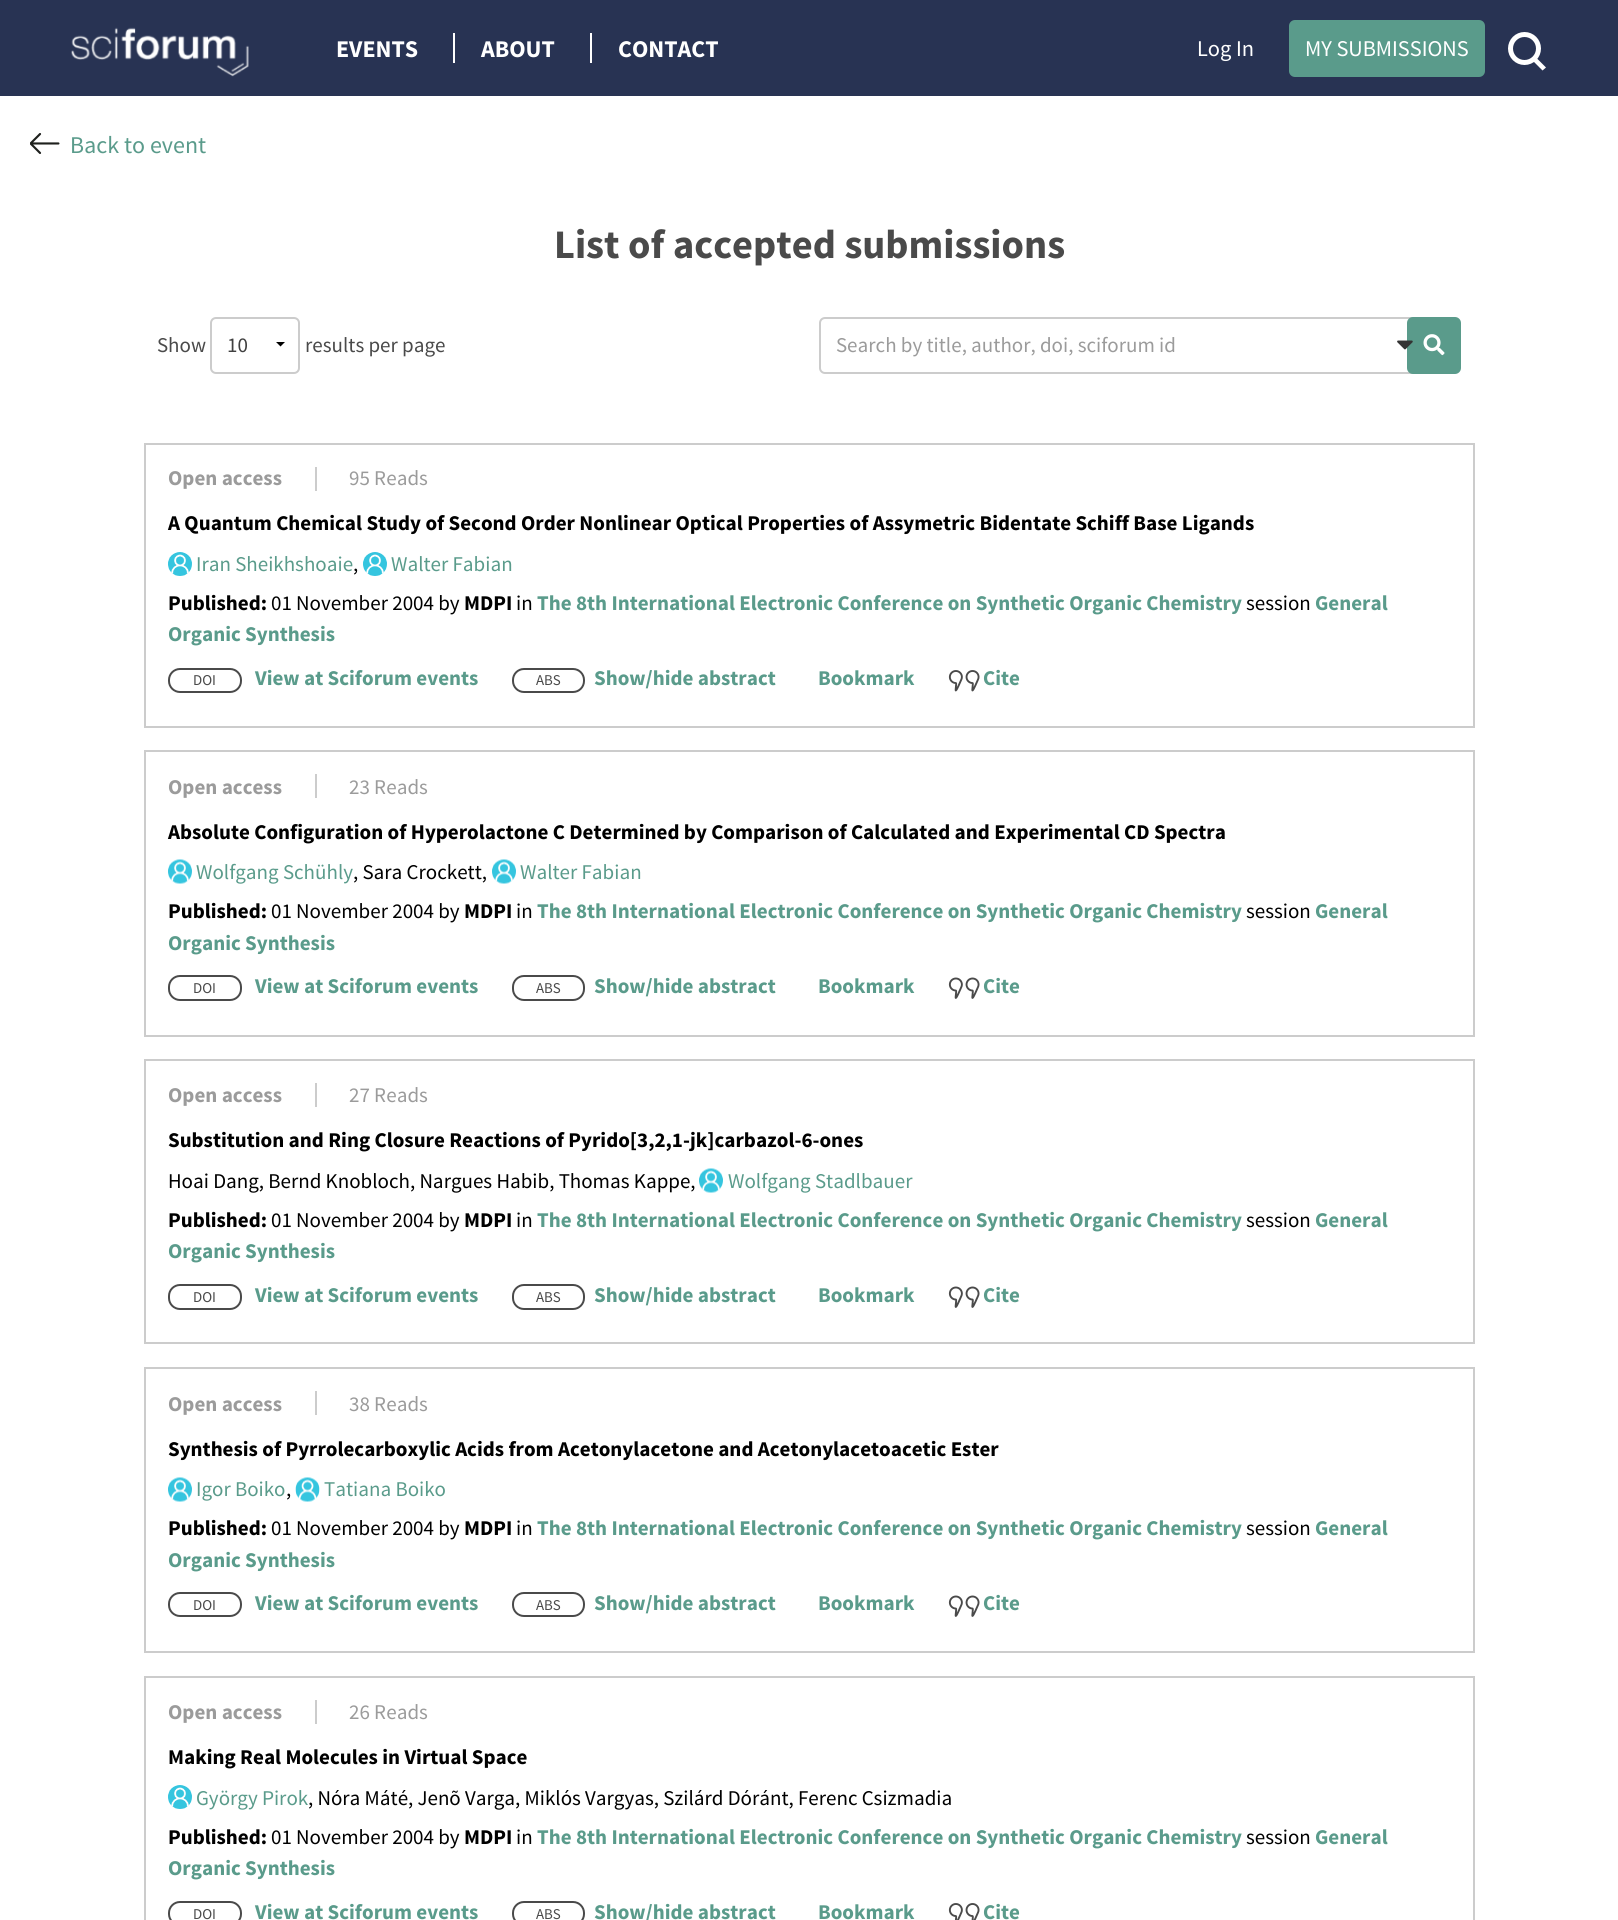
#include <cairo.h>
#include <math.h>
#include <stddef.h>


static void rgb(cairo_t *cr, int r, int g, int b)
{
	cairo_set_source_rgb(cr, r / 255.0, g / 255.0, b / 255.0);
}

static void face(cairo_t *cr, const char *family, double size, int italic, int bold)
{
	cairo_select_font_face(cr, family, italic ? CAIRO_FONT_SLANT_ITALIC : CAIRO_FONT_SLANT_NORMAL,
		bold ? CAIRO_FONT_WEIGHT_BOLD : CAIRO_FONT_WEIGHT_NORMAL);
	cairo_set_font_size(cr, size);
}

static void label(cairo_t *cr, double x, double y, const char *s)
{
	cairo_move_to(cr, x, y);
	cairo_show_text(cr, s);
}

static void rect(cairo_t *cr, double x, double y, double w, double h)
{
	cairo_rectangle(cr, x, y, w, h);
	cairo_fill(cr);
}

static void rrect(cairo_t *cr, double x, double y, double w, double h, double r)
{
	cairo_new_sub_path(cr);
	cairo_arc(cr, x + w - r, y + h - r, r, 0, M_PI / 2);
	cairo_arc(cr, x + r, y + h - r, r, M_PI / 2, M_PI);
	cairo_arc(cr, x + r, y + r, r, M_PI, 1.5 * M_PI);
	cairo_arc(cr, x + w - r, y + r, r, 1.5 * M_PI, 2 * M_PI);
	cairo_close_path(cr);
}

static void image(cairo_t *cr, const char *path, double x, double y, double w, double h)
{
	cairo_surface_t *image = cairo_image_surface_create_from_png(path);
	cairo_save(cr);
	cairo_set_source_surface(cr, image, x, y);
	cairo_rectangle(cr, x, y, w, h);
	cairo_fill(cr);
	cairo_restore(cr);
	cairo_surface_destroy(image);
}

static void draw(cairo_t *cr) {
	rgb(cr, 255, 255, 255);
	cairo_paint(cr);
	rgb(cr, 40, 51, 83);
	rect(cr, 0, 0, 1618, 96);
	image(cr, "image0.png", 71, 27, 178, 50);
	face(cr, "Source Sans Pro", 24, 0, 1);
	rgb(cr, 255, 255, 255);
	label(cr, 336, 57, "EVENTS");
	rect(cr, 453, 33, 2, 30);
	label(cr, 481, 57, "ABOUT");
	rect(cr, 590, 33, 2, 30);
	label(cr, 618, 57, "CONTACT");
	face(cr, "Source Sans Pro", 22.5, 0, 0);
	label(cr, 1197, 56, "Log In");
	rgb(cr, 90, 155, 139);
	rrect(cr, 1290, 21, 194, 55, 5);
	cairo_fill_preserve(cr);
	cairo_stroke(cr);
	rgb(cr, 255, 255, 255);
	label(cr, 1305, 56, "MY SUBMISSIONS");
	cairo_new_path(cr);
	cairo_arc(cr, 1524.5, 48.5, 14, 0, 2 * M_PI);
	cairo_set_line_width(cr, 5);
	cairo_stroke(cr);
	cairo_new_path(cr);
	cairo_move_to(cr, 1535.5, 57);
	cairo_line_to(cr, 1546, 67.5);
	cairo_line_to(cr, 1542.5, 70.5);
	cairo_line_to(cr, 1532, 60);
	cairo_close_path(cr);
	cairo_fill(cr);
	image(cr, "image1.png", 30, 133, 30, 21);
	face(cr, "Source Sans Pro", 24, 0, 0);
	rgb(cr, 90, 155, 139);
	label(cr, 70, 153, "Back to event");
	face(cr, "Source Sans Pro", 40.5, 0, 1);
	rgb(cr, 74, 74, 74);
	label(cr, 554, 258, "List of accepted submissions");
	face(cr, "Source Sans Pro", 21, 0, 0);
	label(cr, 157, 352, "Show");
	rgb(cr, 0, 0, 0);
	cairo_new_path(cr);
	cairo_move_to(cr, 285, 342);
	cairo_line_to(cr, 280.5, 346.5);
	cairo_line_to(cr, 276, 342);
	cairo_close_path(cr);
	cairo_fill(cr);
	rrect(cr, 211, 318, 88, 55, 5);
	rgb(cr, 204, 204, 204);
	cairo_set_line_width(cr, 2);
	cairo_stroke(cr);
	rgb(cr, 64, 64, 64);
	label(cr, 227, 352, "10");
	rgb(cr, 74, 74, 74);
	label(cr, 305, 352, "results per page");
	rrect(cr, 820, 318, 630, 55, 5);
	rgb(cr, 204, 204, 204);
	cairo_stroke(cr);
	rgb(cr, 155, 155, 155);
	label(cr, 836, 352, "Search by title, author, doi, sciforum id");
	rgb(cr, 90, 155, 139);
	rrect(cr, 1408, 318, 52, 55, 5);
	cairo_fill_preserve(cr);
	cairo_stroke(cr);
	image(cr, "image2.png", 1397, 340, 16, 10);
	image(cr, "image3.png", 1423, 334, 22, 22);
	cairo_rectangle(cr, 145, 444, 1329, 283);
	rgb(cr, 204, 204, 204);
	cairo_stroke(cr);
	rect(cr, 315, 467, 2, 24);
	face(cr, "Source Sans Pro", 21, 0, 1);
	rgb(cr, 155, 155, 155);
	label(cr, 168, 485, "Open access");
	face(cr, "Source Sans Pro", 21, 0, 0);
	label(cr, 349, 485, "95 Reads");
	face(cr, "Source Sans Pro", 21, 0, 1);
	rgb(cr, 0, 0, 0);
	label(cr, 168, 530, "A Quantum Chemical Study of Second Order Nonlinear Optical Properties of Assymetric Bidentate Schiff Base Ligands");
	image(cr, "image4.png", 168, 552, 24, 24);
	face(cr, "Source Sans Pro", 21, 0, 0);
	rgb(cr, 90, 155, 139);
	label(cr, 196, 571, "Iran Sheikhshoaie");
	rgb(cr, 0, 0, 0);
	label(cr, 353, 571, ",");
	image(cr, "image4.png", 363, 552, 24, 24);
	rgb(cr, 90, 155, 139);
	label(cr, 391, 571, "Walter Fabian");
	face(cr, "Source Sans Pro", 21, 0, 1);
	rgb(cr, 0, 0, 0);
	label(cr, 168, 610, "Published:");
	face(cr, "Source Sans Pro", 21, 0, 0);
	label(cr, 271, 610, "01 November 2004 by");
	face(cr, "Source Sans Pro", 21, 0, 1);
	label(cr, 464, 610, "MDPI");
	face(cr, "Source Sans Pro", 21, 0, 0);
	label(cr, 516, 610, "in");
	face(cr, "Source Sans Pro", 21, 0, 1);
	rgb(cr, 90, 155, 139);
	label(cr, 537, 610, "The 8th International Electronic Conference on Synthetic Organic Chemistry");
	face(cr, "Source Sans Pro", 21, 0, 0);
	rgb(cr, 0, 0, 0);
	label(cr, 1246, 610, "session");
	face(cr, "Source Sans Pro", 21, 0, 1);
	rgb(cr, 90, 155, 139);
	label(cr, 1315, 610, "General");
	label(cr, 168, 641, "Organic Synthesis");
	rrect(cr, 169, 669, 72, 23, 11);
	rgb(cr, 74, 74, 74);
	cairo_stroke(cr);
	face(cr, "Source Sans Pro", 15, 0, 0);
	label(cr, 193, 685, "DOI");
	face(cr, "Source Sans Pro", 21, 0, 1);
	rgb(cr, 90, 155, 139);
	label(cr, 255, 685, "View at Sciforum events");
	rrect(cr, 513, 669, 71, 23, 11);
	rgb(cr, 74, 74, 74);
	cairo_stroke(cr);
	face(cr, "Source Sans Pro", 15, 0, 0);
	label(cr, 536, 685, "ABS");
	face(cr, "Source Sans Pro", 21, 0, 1);
	rgb(cr, 90, 155, 139);
	label(cr, 594, 685, "Show/hide abstract");
	label(cr, 818, 685, "Bookmark");
	image(cr, "image5.png", 948, 670, 32, 22);
	label(cr, 983, 685, "Cite");
	cairo_rectangle(cr, 145, 751, 1329, 285);
	rgb(cr, 204, 204, 204);
	cairo_stroke(cr);
	rect(cr, 315, 774, 2, 24);
	rgb(cr, 155, 155, 155);
	label(cr, 168, 794, "Open access");
	face(cr, "Source Sans Pro", 21, 0, 0);
	label(cr, 349, 794, "23 Reads");
	face(cr, "Source Sans Pro", 21, 0, 1);
	rgb(cr, 0, 0, 0);
	label(cr, 168, 839, "Absolute Configuration of Hyperolactone C Determined by Comparison of Calculated and Experimental CD Spectra");
	image(cr, "image6.png", 168, 859, 24, 25);
	face(cr, "Source Sans Pro", 21, 0, 0);
	rgb(cr, 90, 155, 139);
	label(cr, 196, 879, "Wolfgang Schühly");
	rgb(cr, 0, 0, 0);
	label(cr, 353, 879, ", Sara Crockett,");
	image(cr, "image6.png", 492, 859, 24, 25);
	rgb(cr, 90, 155, 139);
	label(cr, 520, 879, "Walter Fabian");
	face(cr, "Source Sans Pro", 21, 0, 1);
	rgb(cr, 0, 0, 0);
	label(cr, 168, 918, "Published:");
	face(cr, "Source Sans Pro", 21, 0, 0);
	label(cr, 271, 918, "01 November 2004 by");
	face(cr, "Source Sans Pro", 21, 0, 1);
	label(cr, 464, 918, "MDPI");
	face(cr, "Source Sans Pro", 21, 0, 0);
	label(cr, 516, 918, "in");
	face(cr, "Source Sans Pro", 21, 0, 1);
	rgb(cr, 90, 155, 139);
	label(cr, 537, 918, "The 8th International Electronic Conference on Synthetic Organic Chemistry");
	face(cr, "Source Sans Pro", 21, 0, 0);
	rgb(cr, 0, 0, 0);
	label(cr, 1246, 918, "session");
	face(cr, "Source Sans Pro", 21, 0, 1);
	rgb(cr, 90, 155, 139);
	label(cr, 1315, 918, "General");
	label(cr, 168, 950, "Organic Synthesis");
	rrect(cr, 169, 976, 72, 24, 11);
	rgb(cr, 74, 74, 74);
	cairo_stroke(cr);
	face(cr, "Source Sans Pro", 15, 0, 0);
	label(cr, 193, 993, "DOI");
	face(cr, "Source Sans Pro", 21, 0, 1);
	rgb(cr, 90, 155, 139);
	label(cr, 255, 993, "View at Sciforum events");
	rrect(cr, 513, 976, 71, 24, 11);
	rgb(cr, 74, 74, 74);
	cairo_stroke(cr);
	face(cr, "Source Sans Pro", 15, 0, 0);
	label(cr, 536, 993, "ABS");
	face(cr, "Source Sans Pro", 21, 0, 1);
	rgb(cr, 90, 155, 139);
	label(cr, 594, 993, "Show/hide abstract");
	label(cr, 818, 993, "Bookmark");
	image(cr, "image7.png", 948, 977, 32, 22);
	label(cr, 983, 993, "Cite");
	cairo_rectangle(cr, 145, 1060, 1329, 283);
	rgb(cr, 204, 204, 204);
	cairo_stroke(cr);
	rect(cr, 315, 1083, 2, 24);
	rgb(cr, 155, 155, 155);
	label(cr, 168, 1102, "Open access");
	face(cr, "Source Sans Pro", 21, 0, 0);
	label(cr, 349, 1102, "27 Reads");
	face(cr, "Source Sans Pro", 21, 0, 1);
	rgb(cr, 0, 0, 0);
	label(cr, 168, 1147, "Substitution and Ring Closure Reactions of Pyrido[3,2,1-jk]carbazol-6-ones");
	face(cr, "Source Sans Pro", 21, 0, 0);
	label(cr, 168, 1188, "Hoai Dang, Bernd Knobloch, Nargues Habib, Thomas Kappe,");
	image(cr, "image6.png", 699, 1168, 24, 25);
	rgb(cr, 90, 155, 139);
	label(cr, 728, 1188, "Wolfgang Stadlbauer");
	face(cr, "Source Sans Pro", 21, 0, 1);
	rgb(cr, 0, 0, 0);
	label(cr, 168, 1227, "Published:");
	face(cr, "Source Sans Pro", 21, 0, 0);
	label(cr, 271, 1227, "01 November 2004 by");
	face(cr, "Source Sans Pro", 21, 0, 1);
	label(cr, 464, 1227, "MDPI");
	face(cr, "Source Sans Pro", 21, 0, 0);
	label(cr, 516, 1227, "in");
	face(cr, "Source Sans Pro", 21, 0, 1);
	rgb(cr, 90, 155, 139);
	label(cr, 537, 1227, "The 8th International Electronic Conference on Synthetic Organic Chemistry");
	face(cr, "Source Sans Pro", 21, 0, 0);
	rgb(cr, 0, 0, 0);
	label(cr, 1246, 1227, "session");
	face(cr, "Source Sans Pro", 21, 0, 1);
	rgb(cr, 90, 155, 139);
	label(cr, 1315, 1227, "General");
	label(cr, 168, 1258, "Organic Synthesis");
	rrect(cr, 169, 1285, 72, 24, 11);
	rgb(cr, 74, 74, 74);
	cairo_stroke(cr);
	face(cr, "Source Sans Pro", 15, 0, 0);
	label(cr, 193, 1302, "DOI");
	face(cr, "Source Sans Pro", 21, 0, 1);
	rgb(cr, 90, 155, 139);
	label(cr, 255, 1302, "View at Sciforum events");
	rrect(cr, 513, 1285, 71, 24, 11);
	rgb(cr, 74, 74, 74);
	cairo_stroke(cr);
	face(cr, "Source Sans Pro", 15, 0, 0);
	label(cr, 536, 1302, "ABS");
	face(cr, "Source Sans Pro", 21, 0, 1);
	rgb(cr, 90, 155, 139);
	label(cr, 594, 1302, "Show/hide abstract");
	label(cr, 818, 1302, "Bookmark");
	image(cr, "image7.png", 948, 1286, 32, 22);
	label(cr, 983, 1302, "Cite");
	cairo_rectangle(cr, 145, 1368, 1329, 284);
	rgb(cr, 204, 204, 204);
	cairo_stroke(cr);
	rect(cr, 315, 1391, 2, 24);
	rgb(cr, 155, 155, 155);
	label(cr, 168, 1411, "Open access");
	face(cr, "Source Sans Pro", 21, 0, 0);
	label(cr, 349, 1411, "38 Reads");
	face(cr, "Source Sans Pro", 21, 0, 1);
	rgb(cr, 0, 0, 0);
	label(cr, 168, 1456, "Synthesis of Pyrrolecarboxylic Acids from Acetonylacetone and Acetonylacetoacetic Ester");
	image(cr, "image6.png", 168, 1477, 24, 25);
	face(cr, "Source Sans Pro", 21, 0, 0);
	rgb(cr, 90, 155, 139);
	label(cr, 196, 1496, "Igor Boiko");
	rgb(cr, 0, 0, 0);
	label(cr, 286, 1496, ",");
	image(cr, "image8.png", 295, 1477, 25, 25);
	rgb(cr, 90, 155, 139);
	label(cr, 324, 1496, "Tatiana Boiko");
	face(cr, "Source Sans Pro", 21, 0, 1);
	rgb(cr, 0, 0, 0);
	label(cr, 168, 1535, "Published:");
	face(cr, "Source Sans Pro", 21, 0, 0);
	label(cr, 271, 1535, "01 November 2004 by");
	face(cr, "Source Sans Pro", 21, 0, 1);
	label(cr, 464, 1535, "MDPI");
	face(cr, "Source Sans Pro", 21, 0, 0);
	label(cr, 516, 1535, "in");
	face(cr, "Source Sans Pro", 21, 0, 1);
	rgb(cr, 90, 155, 139);
	label(cr, 537, 1535, "The 8th International Electronic Conference on Synthetic Organic Chemistry");
	face(cr, "Source Sans Pro", 21, 0, 0);
	rgb(cr, 0, 0, 0);
	label(cr, 1246, 1535, "session");
	face(cr, "Source Sans Pro", 21, 0, 1);
	rgb(cr, 90, 155, 139);
	label(cr, 1315, 1535, "General");
	label(cr, 168, 1567, "Organic Synthesis");
	rrect(cr, 169, 1593, 72, 23, 11);
	rgb(cr, 74, 74, 74);
	cairo_stroke(cr);
	face(cr, "Source Sans Pro", 15, 0, 0);
	label(cr, 193, 1610, "DOI");
	face(cr, "Source Sans Pro", 21, 0, 1);
	rgb(cr, 90, 155, 139);
	label(cr, 255, 1610, "View at Sciforum events");
	rrect(cr, 513, 1593, 71, 23, 11);
	rgb(cr, 74, 74, 74);
	cairo_stroke(cr);
	face(cr, "Source Sans Pro", 15, 0, 0);
	label(cr, 536, 1610, "ABS");
	face(cr, "Source Sans Pro", 21, 0, 1);
	rgb(cr, 90, 155, 139);
	label(cr, 594, 1610, "Show/hide abstract");
	label(cr, 818, 1610, "Bookmark");
	image(cr, "image7.png", 948, 1595, 32, 22);
	label(cr, 983, 1610, "Cite");
	cairo_rectangle(cr, 145, 1677, 1329, 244);
	rgb(cr, 204, 204, 204);
	cairo_stroke(cr);
	rect(cr, 315, 1700, 2, 24);
	rgb(cr, 155, 155, 155);
	label(cr, 168, 1719, "Open access");
	face(cr, "Source Sans Pro", 21, 0, 0);
	label(cr, 349, 1719, "26 Reads");
	face(cr, "Source Sans Pro", 21, 0, 1);
	rgb(cr, 0, 0, 0);
	label(cr, 168, 1764, "Making Real Molecules in Virtual Space");
	image(cr, "image4.png", 168, 1785, 24, 24);
	face(cr, "Source Sans Pro", 21, 0, 0);
	rgb(cr, 90, 155, 139);
	label(cr, 196, 1805, "György Pirok");
	rgb(cr, 0, 0, 0);
	label(cr, 308, 1805, ", Nóra Máté, Jenõ Varga, Miklós Vargyas, Szilárd Dóránt, Ferenc Csizmadia");
	face(cr, "Source Sans Pro", 21, 0, 1);
	label(cr, 168, 1844, "Published:");
	face(cr, "Source Sans Pro", 21, 0, 0);
	label(cr, 271, 1844, "01 November 2004 by");
	face(cr, "Source Sans Pro", 21, 0, 1);
	label(cr, 464, 1844, "MDPI");
	face(cr, "Source Sans Pro", 21, 0, 0);
	label(cr, 516, 1844, "in");
	face(cr, "Source Sans Pro", 21, 0, 1);
	rgb(cr, 90, 155, 139);
	label(cr, 537, 1844, "The 8th International Electronic Conference on Synthetic Organic Chemistry");
	face(cr, "Source Sans Pro", 21, 0, 0);
	rgb(cr, 0, 0, 0);
	label(cr, 1246, 1844, "session");
	face(cr, "Source Sans Pro", 21, 0, 1);
	rgb(cr, 90, 155, 139);
	label(cr, 1315, 1844, "General");
	label(cr, 168, 1875, "Organic Synthesis");
	rrect(cr, 169, 1902, 72, 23, 11);
	rgb(cr, 74, 74, 74);
	cairo_stroke(cr);
	face(cr, "Source Sans Pro", 15, 0, 0);
	label(cr, 193, 1919, "DOI");
	face(cr, "Source Sans Pro", 21, 0, 1);
	rgb(cr, 90, 155, 139);
	label(cr, 255, 1919, "View at Sciforum events");
	rrect(cr, 513, 1902, 71, 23, 11);
	rgb(cr, 74, 74, 74);
	cairo_stroke(cr);
	face(cr, "Source Sans Pro", 15, 0, 0);
	label(cr, 536, 1919, "ABS");
	face(cr, "Source Sans Pro", 21, 0, 1);
	rgb(cr, 90, 155, 139);
	label(cr, 594, 1919, "Show/hide abstract");
	label(cr, 818, 1919, "Bookmark");
	image(cr, "image9.png", 948, 1903, 32, 17);
	label(cr, 983, 1919, "Cite");
}

int main(void) {
	cairo_surface_t *surface = cairo_image_surface_create(CAIRO_FORMAT_RGB24, 1618, 1920);
	cairo_t *cr = cairo_create(surface);
	cairo_font_options_t *options = cairo_font_options_create();
	cairo_font_options_set_hint_metrics(options, CAIRO_HINT_METRICS_OFF);
	cairo_font_options_set_hint_style(options, CAIRO_HINT_STYLE_NONE);
	cairo_set_font_options(cr, options);
	cairo_set_miter_limit(cr, 4);
	draw(cr);
	cairo_surface_write_to_png(surface, "render.png");
	cairo_font_options_destroy(options);
	cairo_destroy(cr);
	cairo_surface_destroy(surface);
	return 0;
}
